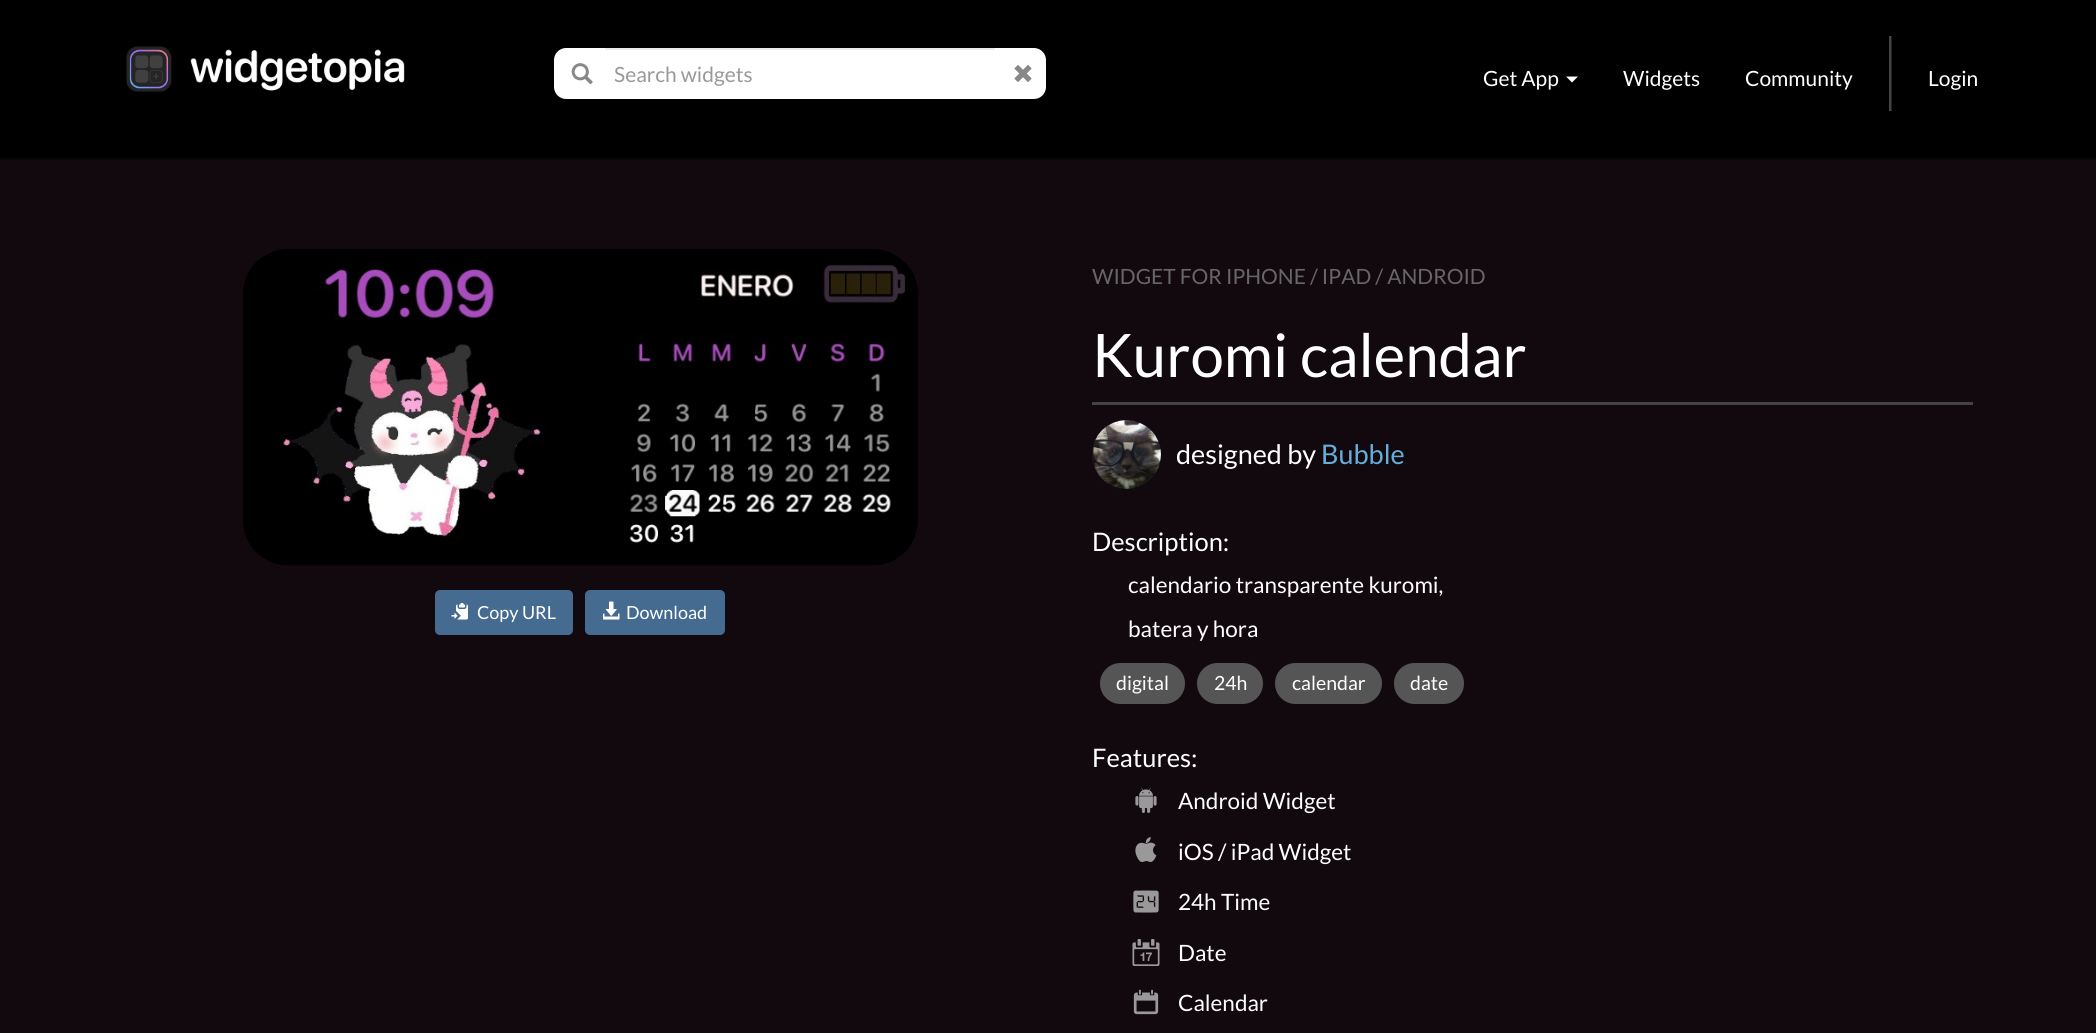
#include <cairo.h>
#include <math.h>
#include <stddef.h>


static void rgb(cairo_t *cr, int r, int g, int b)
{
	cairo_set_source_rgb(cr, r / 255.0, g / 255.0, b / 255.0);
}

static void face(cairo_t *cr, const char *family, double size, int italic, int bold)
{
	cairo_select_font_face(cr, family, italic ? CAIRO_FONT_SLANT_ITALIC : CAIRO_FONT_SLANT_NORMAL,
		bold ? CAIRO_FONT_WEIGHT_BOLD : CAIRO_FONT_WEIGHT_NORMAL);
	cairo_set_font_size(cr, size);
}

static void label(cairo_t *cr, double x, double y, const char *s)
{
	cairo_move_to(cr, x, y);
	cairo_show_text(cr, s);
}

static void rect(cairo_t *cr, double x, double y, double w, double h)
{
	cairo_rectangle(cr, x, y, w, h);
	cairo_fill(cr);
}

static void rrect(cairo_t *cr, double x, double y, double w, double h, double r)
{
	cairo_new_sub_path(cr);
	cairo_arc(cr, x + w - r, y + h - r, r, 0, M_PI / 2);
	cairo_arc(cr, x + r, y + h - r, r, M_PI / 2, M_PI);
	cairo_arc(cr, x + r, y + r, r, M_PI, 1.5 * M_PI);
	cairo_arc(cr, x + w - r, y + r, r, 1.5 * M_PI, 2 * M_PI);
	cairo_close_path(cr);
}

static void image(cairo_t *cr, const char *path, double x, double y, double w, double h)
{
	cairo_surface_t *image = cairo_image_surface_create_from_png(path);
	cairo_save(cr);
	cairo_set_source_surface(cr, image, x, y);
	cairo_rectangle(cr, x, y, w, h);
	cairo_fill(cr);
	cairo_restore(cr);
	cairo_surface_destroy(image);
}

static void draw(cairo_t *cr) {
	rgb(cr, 18, 9, 15);
	cairo_paint(cr);
	rgb(cr, 0, 0, 0);
	rect(cr, 0, 0, 2096, 158);
	rgb(cr, 8, 8, 8);
	rect(cr, 0, 158, 2096, 2);
	image(cr, "image0.png", 126, 46, 279, 46);
	rgb(cr, 255, 255, 255);
	cairo_new_path(cr);
	cairo_move_to(cr, 566, 48);
	cairo_line_to(cr, 605, 48);
	cairo_line_to(cr, 605, 99);
	cairo_line_to(cr, 566, 99);
	cairo_curve_to(cr, 559.5, 99, 554, 93.5, 554, 87);
	cairo_line_to(cr, 554, 60);
	cairo_curve_to(cr, 554, 53.5, 559.5, 48, 566, 48);
	cairo_close_path(cr);
	cairo_fill(cr);
	image(cr, "image1.png", 571, 63, 22, 22);
	rect(cr, 605, 50, 390, 49);
	rgb(cr, 236, 236, 236);
	rect(cr, 605, 48, 390, 2);
	face(cr, "Lato", 21, 0, 0);
	rgb(cr, 153, 153, 153);
	label(cr, 614, 82, "Search widgets");
	rgb(cr, 255, 255, 255);
	cairo_new_path(cr);
	cairo_move_to(cr, 995, 48);
	cairo_line_to(cr, 1034, 48);
	cairo_curve_to(cr, 1040.5, 48, 1046, 53.5, 1046, 60);
	cairo_line_to(cr, 1046, 87);
	cairo_curve_to(cr, 1046, 93.5, 1040.5, 99, 1034, 99);
	cairo_line_to(cr, 995, 99);
	cairo_close_path(cr);
	cairo_fill(cr);
	image(cr, "image2.png", 1014, 65, 18, 17);
	label(cr, 1483, 86, "Get App");
	cairo_new_path(cr);
	cairo_move_to(cr, 1566, 76.5);
	cairo_line_to(cr, 1578, 76.5);
	cairo_line_to(cr, 1572, 82.5);
	cairo_close_path(cr);
	cairo_fill(cr);
	label(cr, 1623, 86, "Widgets");
	label(cr, 1745, 86, "Community");
	rgb(cr, 34, 34, 34);
	rect(cr, 1891, 36, 1, 75);
	rgb(cr, 68, 68, 68);
	rect(cr, 1889, 36, 2, 75);
	rgb(cr, 255, 255, 255);
	label(cr, 1928, 86, "Login");
	image(cr, "image3.png", 243, 249, 675, 317);
	rgb(cr, 69, 107, 144);
	rrect(cr, 435, 590, 138, 45, 5);
	cairo_fill(cr);
	image(cr, "image4.png", 451, 603, 17, 17);
	face(cr, "Lato", 18, 0, 0);
	rgb(cr, 255, 255, 255);
	label(cr, 477, 619, "Copy URL");
	rgb(cr, 69, 107, 144);
	rrect(cr, 585, 590, 140, 45, 5);
	cairo_fill(cr);
	image(cr, "image5.png", 603, 601, 17, 19);
	rgb(cr, 255, 255, 255);
	label(cr, 626, 619, "Download");
	face(cr, "Lato", 21, 0, 0);
	rgb(cr, 102, 102, 102);
	label(cr, 1092, 284, "WIDGET FOR IPHONE / IPAD / ANDROID");
	face(cr, "Lato", 60, 0, 0);
	rgb(cr, 255, 255, 255);
	label(cr, 1092, 377, "Kuromi calendar");
	rgb(cr, 68, 68, 68);
	rect(cr, 1092, 402, 881, 3);
	image(cr, "image6.png", 1092, 420, 69, 69);
	face(cr, "Lato", 27, 0, 0);
	rgb(cr, 255, 255, 255);
	label(cr, 1176, 464, "designed by");
	rgb(cr, 102, 174, 218);
	label(cr, 1321, 464, "Bubble");
	face(cr, "Lato", 25.5, 0, 0);
	rgb(cr, 255, 255, 255);
	label(cr, 1092, 551, "Description:");
	face(cr, "Lato", 22.5, 0, 0);
	label(cr, 1128, 593, "calendario transparente kuromi,");
	label(cr, 1128, 637, "batera y hora");
	rgb(cr, 85, 85, 85);
	rrect(cr, 1100, 663, 85, 41, 20.5);
	cairo_fill(cr);
	face(cr, "Lato", 19.5, 0, 0);
	rgb(cr, 255, 255, 255);
	label(cr, 1116, 690, "digital");
	rgb(cr, 85, 85, 85);
	rrect(cr, 1197, 663, 66, 41, 20.5);
	cairo_fill(cr);
	rgb(cr, 255, 255, 255);
	label(cr, 1214, 690, "24h");
	rgb(cr, 85, 85, 85);
	rrect(cr, 1275, 663, 107, 41, 20.5);
	cairo_fill(cr);
	rgb(cr, 255, 255, 255);
	label(cr, 1292, 690, "calendar");
	rgb(cr, 85, 85, 85);
	rrect(cr, 1394, 663, 70, 41, 20.5);
	cairo_fill(cr);
	rgb(cr, 255, 255, 255);
	label(cr, 1410, 690, "date");
	face(cr, "Lato", 25.5, 0, 0);
	label(cr, 1092, 767, "Features:");
	image(cr, "image7.png", 1135, 788, 22, 25);
	face(cr, "Lato", 22.5, 0, 0);
	label(cr, 1178, 809, "Android Widget");
	image(cr, "image8.png", 1135, 837, 22, 25);
	label(cr, 1178, 860, "iOS / iPad Widget");
	image(cr, "image9.png", 1133, 890, 26, 23);
	label(cr, 1178, 910, "24h Time");
	image(cr, "image10.png", 1132, 939, 28, 27);
	label(cr, 1178, 961, "Date");
	image(cr, "image11.png", 1133, 989, 26, 26);
	label(cr, 1178, 1011, "Calendar");
}

int main(void) {
	cairo_surface_t *surface = cairo_image_surface_create(CAIRO_FORMAT_RGB24, 2096, 1033);
	cairo_t *cr = cairo_create(surface);
	cairo_font_options_t *options = cairo_font_options_create();
	cairo_font_options_set_hint_metrics(options, CAIRO_HINT_METRICS_OFF);
	cairo_font_options_set_hint_style(options, CAIRO_HINT_STYLE_NONE);
	cairo_set_font_options(cr, options);
	cairo_set_miter_limit(cr, 4);
	draw(cr);
	cairo_surface_write_to_png(surface, "render.png");
	cairo_font_options_destroy(options);
	cairo_destroy(cr);
	cairo_surface_destroy(surface);
	return 0;
}
